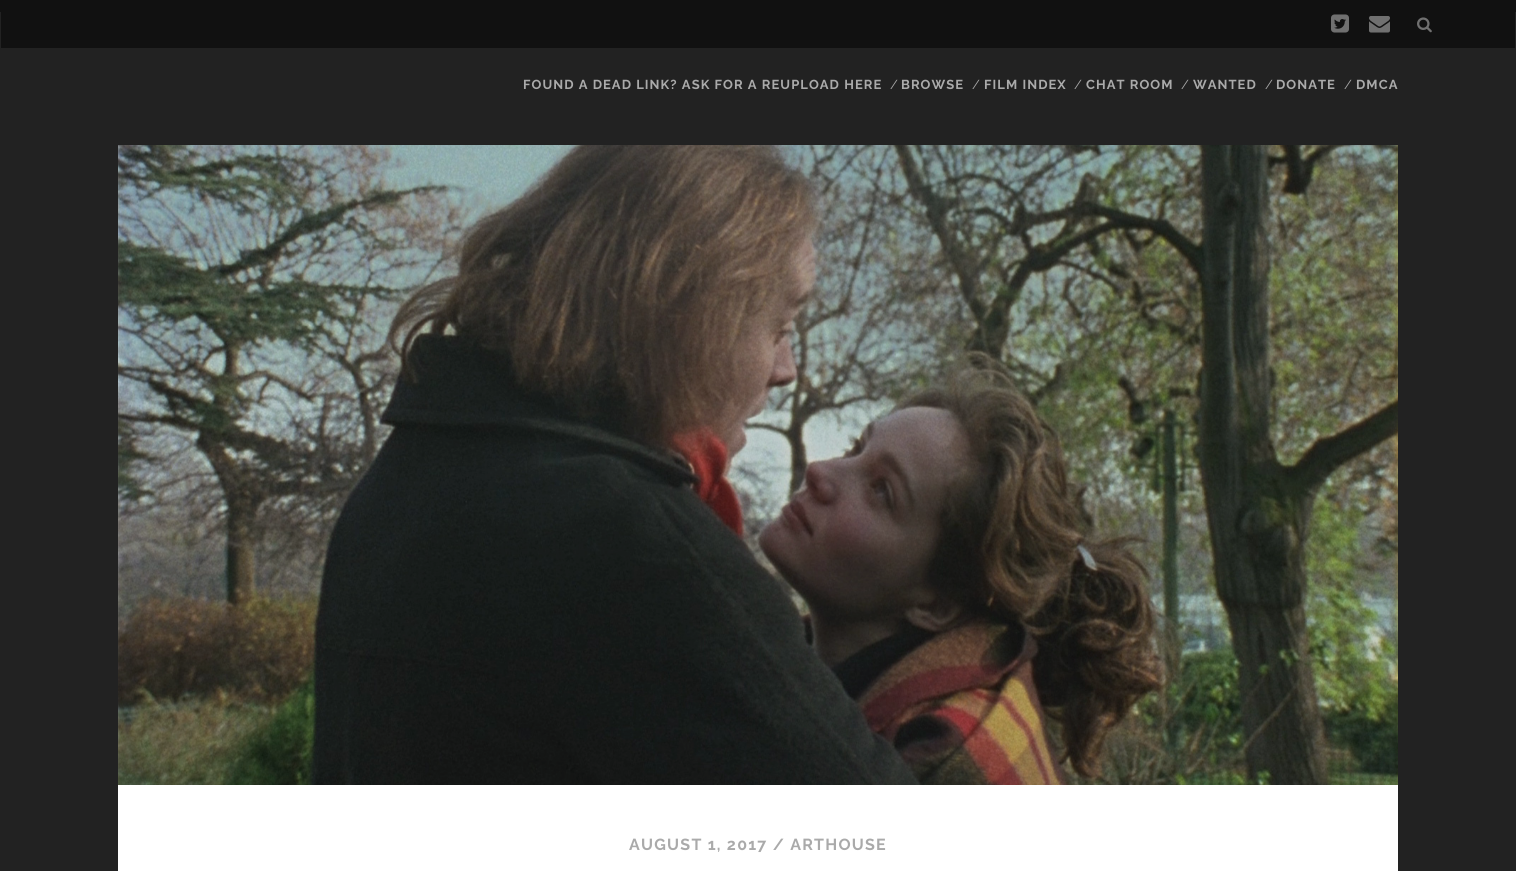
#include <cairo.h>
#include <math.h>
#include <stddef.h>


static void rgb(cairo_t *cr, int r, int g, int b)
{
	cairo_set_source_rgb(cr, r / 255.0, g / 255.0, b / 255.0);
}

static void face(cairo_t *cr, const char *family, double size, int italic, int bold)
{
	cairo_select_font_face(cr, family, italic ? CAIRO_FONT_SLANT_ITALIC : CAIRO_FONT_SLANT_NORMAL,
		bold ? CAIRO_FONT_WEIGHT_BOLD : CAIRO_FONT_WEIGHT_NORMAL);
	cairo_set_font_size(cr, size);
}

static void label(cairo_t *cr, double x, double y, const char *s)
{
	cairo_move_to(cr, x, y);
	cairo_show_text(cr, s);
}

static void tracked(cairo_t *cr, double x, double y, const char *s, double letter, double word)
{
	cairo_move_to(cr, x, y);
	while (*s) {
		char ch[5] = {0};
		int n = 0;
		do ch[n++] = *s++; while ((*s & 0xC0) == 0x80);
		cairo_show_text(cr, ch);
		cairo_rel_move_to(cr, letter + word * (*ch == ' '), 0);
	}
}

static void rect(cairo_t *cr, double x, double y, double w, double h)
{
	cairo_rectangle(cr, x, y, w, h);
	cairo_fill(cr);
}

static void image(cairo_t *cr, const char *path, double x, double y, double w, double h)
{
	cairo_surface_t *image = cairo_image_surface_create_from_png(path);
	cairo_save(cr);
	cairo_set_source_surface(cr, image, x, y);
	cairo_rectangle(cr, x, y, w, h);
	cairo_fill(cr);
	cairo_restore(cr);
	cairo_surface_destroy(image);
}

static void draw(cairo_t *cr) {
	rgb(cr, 34, 34, 34);
	cairo_paint(cr);
	rgb(cr, 17, 17, 17);
	rect(cr, 0, 0, 1516, 12);
	rect(cr, 1, 12, 1514, 36);
	image(cr, "image0.png", 1331, 14, 18, 19);
	image(cr, "image1.png", 1369, 16, 21, 17);
	image(cr, "image2.png", 1417, 17, 15, 16);
	face(cr, "Raleway", 13, 0, 1);
	rgb(cr, 170, 170, 170);
	tracked(cr, 523, 89, "FOUND A DEAD LINK? ASK FOR A REUPLOAD HERE", 1.05, 0);
	face(cr, "Raleway", 13, 0, 0);
	label(cr, 890, 89, "/");
	face(cr, "Raleway", 13, 0, 1);
	tracked(cr, 901, 89, "BROWSE", 1.05, 0);
	face(cr, "Raleway", 13, 0, 0);
	label(cr, 972, 89, "/");
	face(cr, "Raleway", 13, 0, 1);
	tracked(cr, 984, 89, "FILM INDEX", 1.05, 0);
	face(cr, "Raleway", 13, 0, 0);
	label(cr, 1074, 89, "/");
	face(cr, "Raleway", 13, 0, 1);
	tracked(cr, 1086, 89, "CHAT ROOM", 1.05, 0);
	face(cr, "Raleway", 13, 0, 0);
	label(cr, 1181, 89, "/");
	face(cr, "Raleway", 13, 0, 1);
	tracked(cr, 1193, 89, "WANTED", 1.05, 0);
	face(cr, "Raleway", 13, 0, 0);
	label(cr, 1265, 89, "/");
	face(cr, "Raleway", 13, 0, 1);
	tracked(cr, 1276, 89, "DONATE", 1.05, 0);
	face(cr, "Raleway", 13, 0, 0);
	label(cr, 1344, 89, "/");
	face(cr, "Raleway", 13, 0, 1);
	tracked(cr, 1356, 89, "DMCA", 1.05, 0);
	rgb(cr, 255, 255, 255);
	rect(cr, 118, 785, 1280, 86);
	image(cr, "image3.png", 118, 145, 1280, 640);
	face(cr, "Raleway", 16, 0, 1);
	rgb(cr, 170, 170, 170);
	tracked(cr, 629, 850, "AUGUST 1, 2017 / ARTHOUSE", 1.25, 0);
}

int main(void) {
	cairo_surface_t *surface = cairo_image_surface_create(CAIRO_FORMAT_RGB24, 1516, 871);
	cairo_t *cr = cairo_create(surface);
	cairo_font_options_t *options = cairo_font_options_create();
	cairo_font_options_set_hint_metrics(options, CAIRO_HINT_METRICS_OFF);
	cairo_font_options_set_hint_style(options, CAIRO_HINT_STYLE_NONE);
	cairo_set_font_options(cr, options);
	cairo_set_miter_limit(cr, 4);
	draw(cr);
	cairo_surface_write_to_png(surface, "render.png");
	cairo_font_options_destroy(options);
	cairo_destroy(cr);
	cairo_surface_destroy(surface);
	return 0;
}
